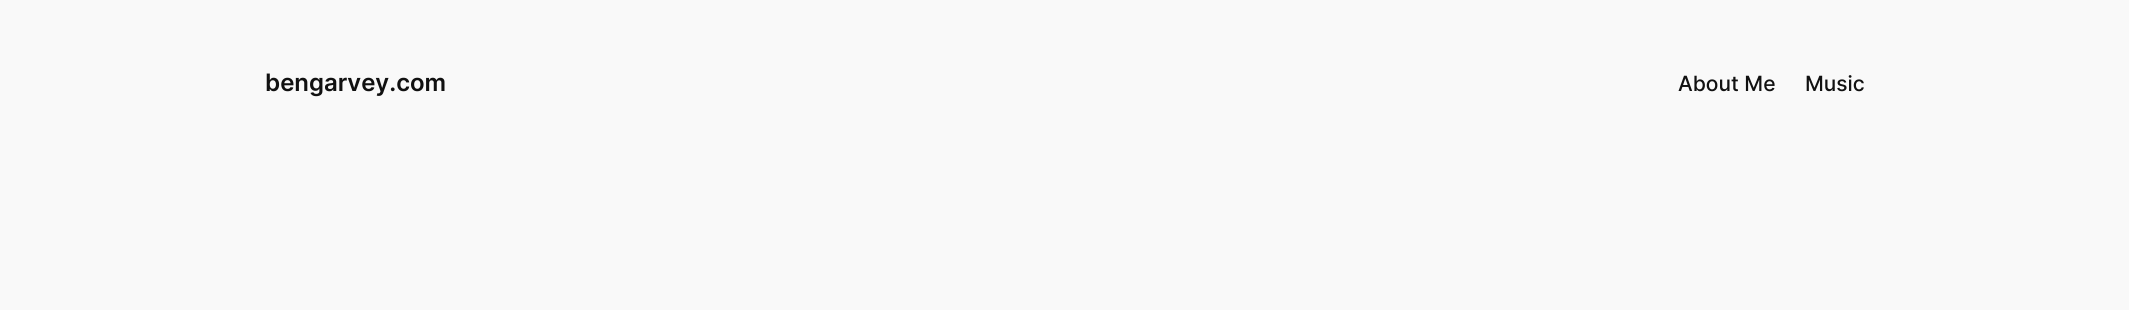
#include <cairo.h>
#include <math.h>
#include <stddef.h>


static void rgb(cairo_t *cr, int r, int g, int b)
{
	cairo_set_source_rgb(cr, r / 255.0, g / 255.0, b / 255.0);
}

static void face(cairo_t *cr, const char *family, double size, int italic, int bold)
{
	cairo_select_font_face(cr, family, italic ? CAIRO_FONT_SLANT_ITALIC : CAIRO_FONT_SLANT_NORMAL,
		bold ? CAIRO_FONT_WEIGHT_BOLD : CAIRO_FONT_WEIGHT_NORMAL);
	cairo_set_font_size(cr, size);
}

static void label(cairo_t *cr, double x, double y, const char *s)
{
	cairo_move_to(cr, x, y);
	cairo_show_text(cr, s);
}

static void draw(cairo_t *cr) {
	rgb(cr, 249, 249, 249);
	cairo_paint(cr);
	face(cr, "Inter SemiBold", 24, 0, 0);
	rgb(cr, 17, 17, 17);
	label(cr, 265, 91, "bengarvey.com");
	face(cr, "Inter Medium", 21, 0, 0);
	label(cr, 1678, 91, "About Me");
	label(cr, 1805, 91, "Music");
}

int main(void) {
	cairo_surface_t *surface = cairo_image_surface_create(CAIRO_FORMAT_RGB24, 2129, 310);
	cairo_t *cr = cairo_create(surface);
	cairo_font_options_t *options = cairo_font_options_create();
	cairo_font_options_set_hint_metrics(options, CAIRO_HINT_METRICS_OFF);
	cairo_font_options_set_hint_style(options, CAIRO_HINT_STYLE_NONE);
	cairo_set_font_options(cr, options);
	cairo_set_miter_limit(cr, 4);
	draw(cr);
	cairo_surface_write_to_png(surface, "render.png");
	cairo_font_options_destroy(options);
	cairo_destroy(cr);
	cairo_surface_destroy(surface);
	return 0;
}
